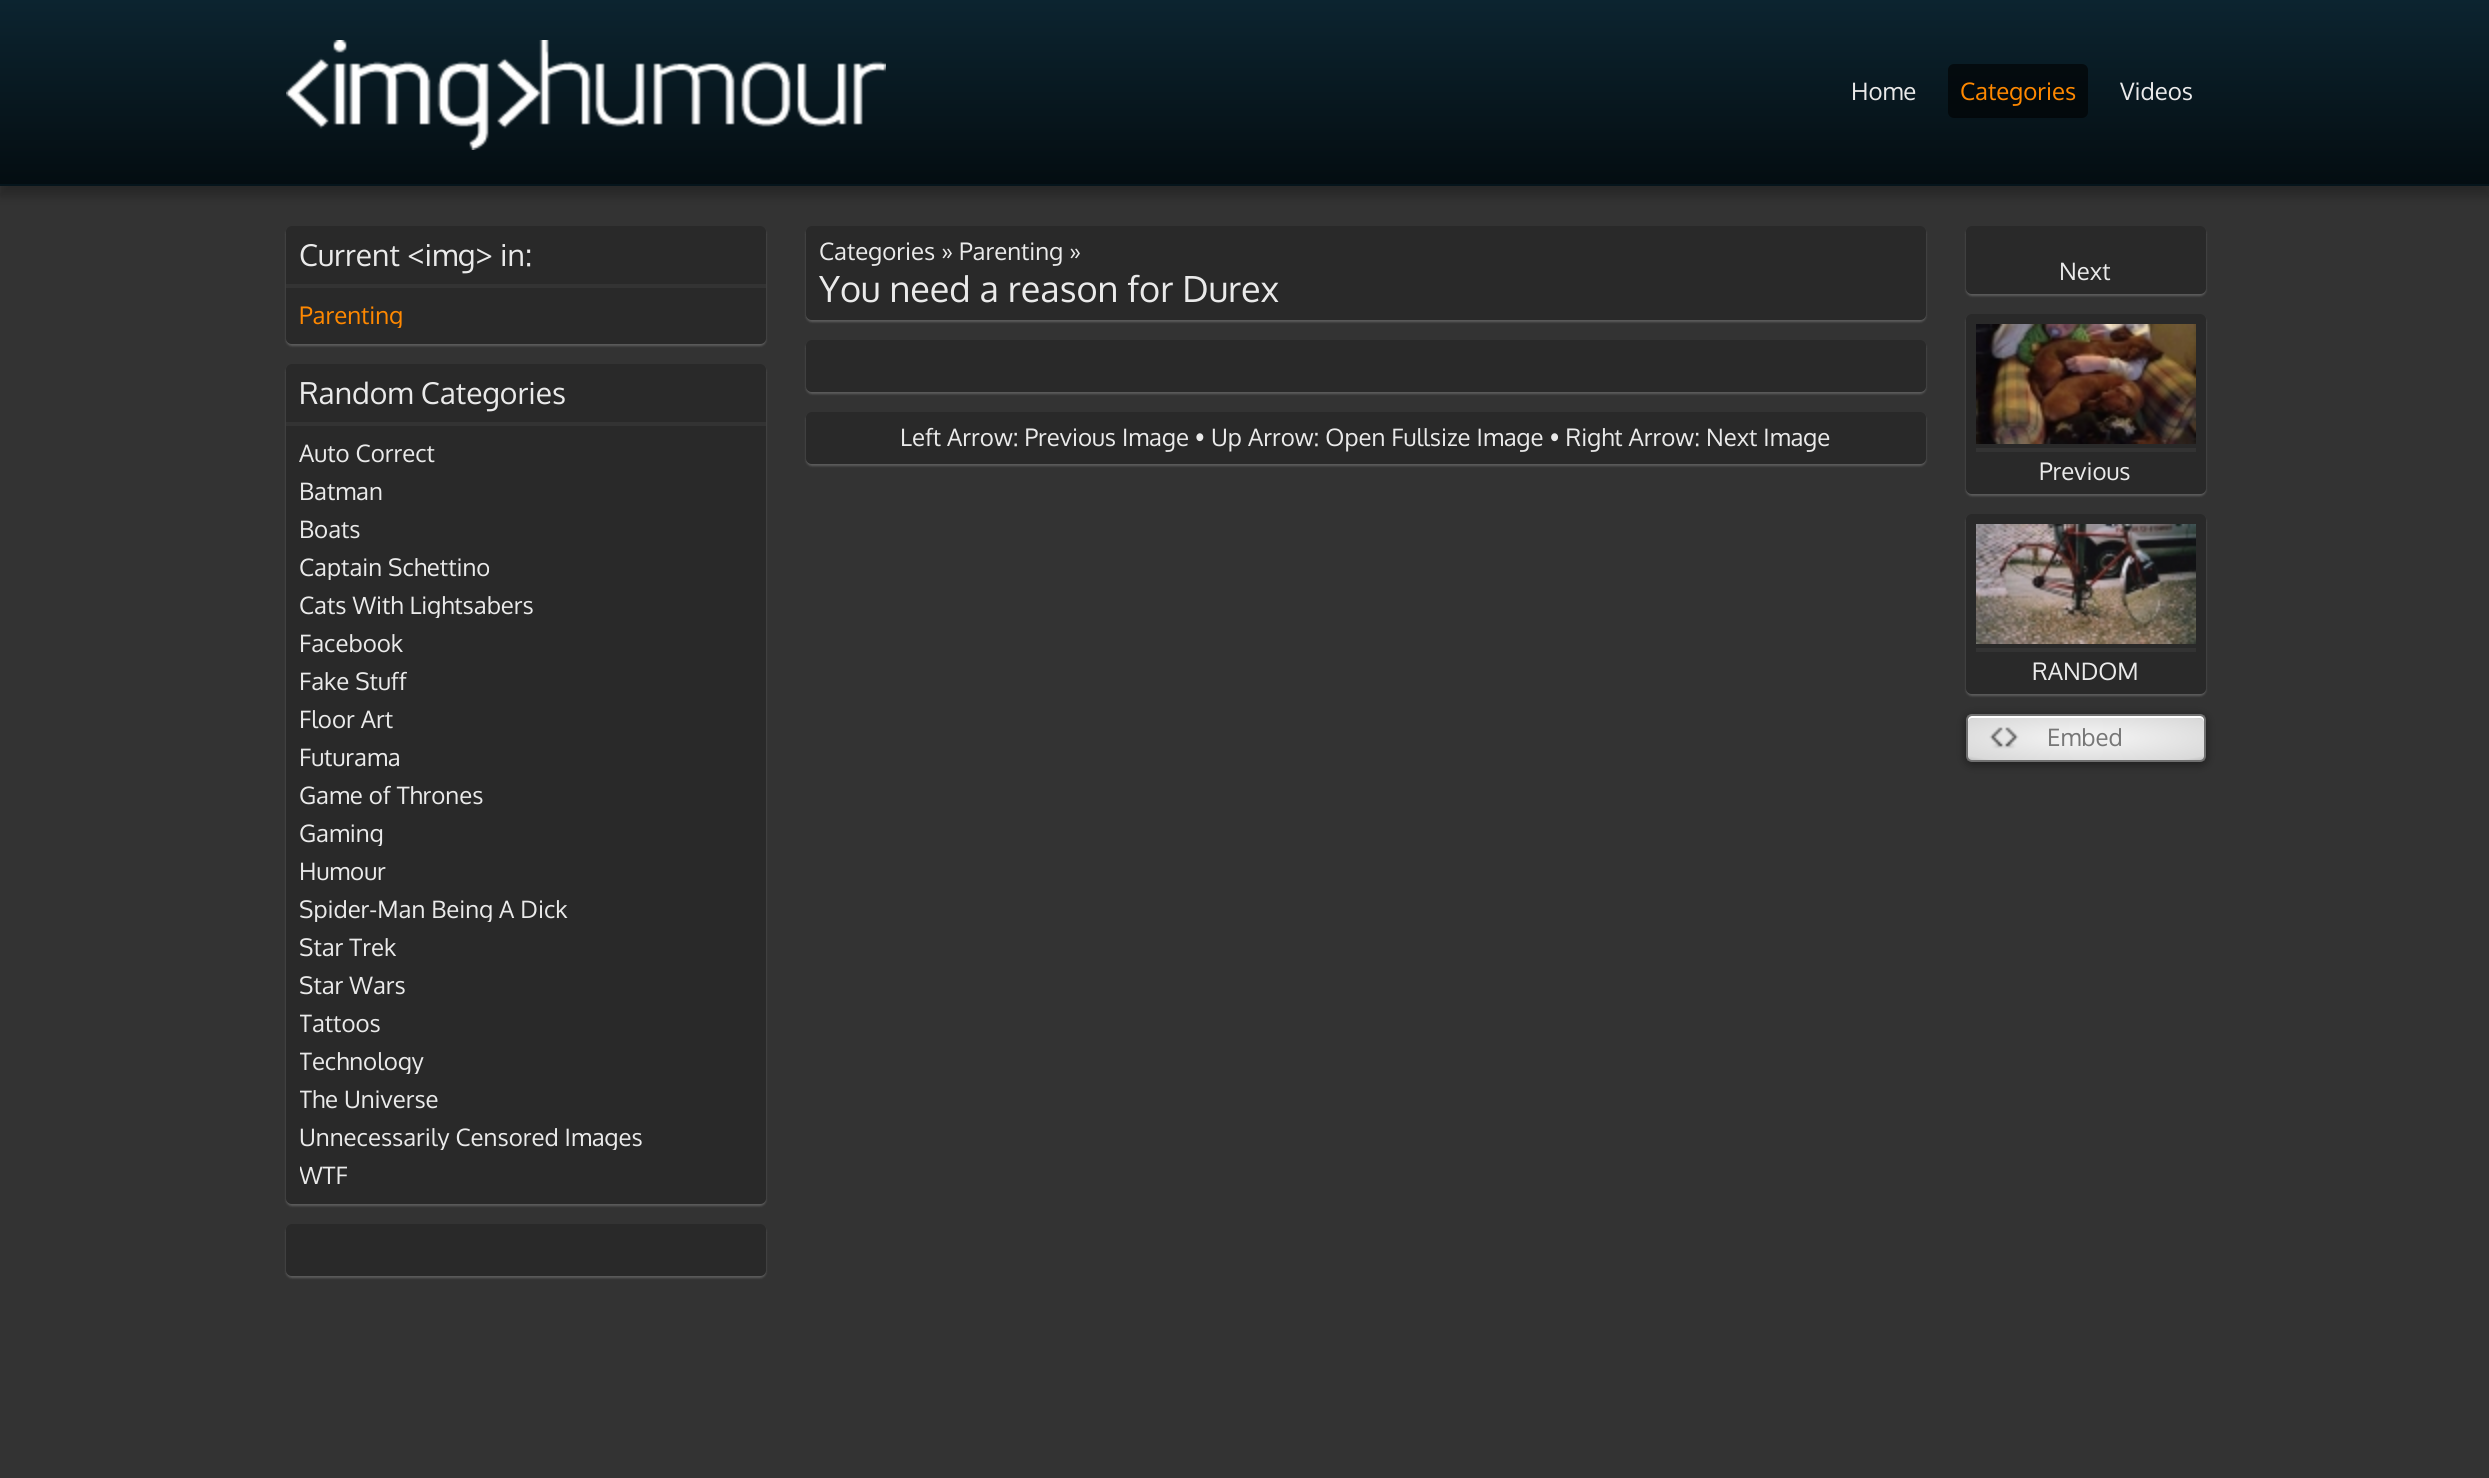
#include <cairo.h>
#include <math.h>
#include <stddef.h>


static void rgb(cairo_t *cr, int r, int g, int b)
{
	cairo_set_source_rgb(cr, r / 255.0, g / 255.0, b / 255.0);
}

static void face(cairo_t *cr, const char *family, double size, int italic, int bold)
{
	cairo_select_font_face(cr, family, italic ? CAIRO_FONT_SLANT_ITALIC : CAIRO_FONT_SLANT_NORMAL,
		bold ? CAIRO_FONT_WEIGHT_BOLD : CAIRO_FONT_WEIGHT_NORMAL);
	cairo_set_font_size(cr, size);
}

static void label(cairo_t *cr, double x, double y, const char *s)
{
	cairo_move_to(cr, x, y);
	cairo_show_text(cr, s);
}

static void rect(cairo_t *cr, double x, double y, double w, double h)
{
	cairo_rectangle(cr, x, y, w, h);
	cairo_fill(cr);
}

static void rrect(cairo_t *cr, double x, double y, double w, double h, double r)
{
	cairo_new_sub_path(cr);
	cairo_arc(cr, x + w - r, y + h - r, r, 0, M_PI / 2);
	cairo_arc(cr, x + r, y + h - r, r, M_PI / 2, M_PI);
	cairo_arc(cr, x + r, y + r, r, M_PI, 1.5 * M_PI);
	cairo_arc(cr, x + w - r, y + r, r, 1.5 * M_PI, 2 * M_PI);
	cairo_close_path(cr);
}

static void soft_shadow(cairo_t *cr, double x, double y, double w, double h, double r, double blur, double alpha)
{
	cairo_push_group_with_content(cr, CAIRO_CONTENT_ALPHA);
	cairo_set_operator(cr, CAIRO_OPERATOR_SOURCE);
	for (int i = 15; i >= -15 && fmin(w, h) + blur * i / 3 > 0; i -= 2) {
		double e = blur * i / 6;
		cairo_set_source_rgba(cr, 0, 0, 0, alpha * erfc((i - 1) / 8.5) / 2);
		rrect(cr, x - e, y - e, w + 2 * e, h + 2 * e, fmax(0, fmin(r + e + blur * .6, fmin(w, h) / 2 + e)));
		cairo_fill(cr);
	}
	cairo_pattern_t *soft = cairo_pop_group(cr);
	cairo_mask(cr, soft);
	cairo_pattern_destroy(soft);
}

static void image(cairo_t *cr, const char *path, double x, double y, double w, double h)
{
	cairo_surface_t *image = cairo_image_surface_create_from_png(path);
	cairo_save(cr);
	cairo_set_source_surface(cr, image, x, y);
	cairo_rectangle(cr, x, y, w, h);
	cairo_fill(cr);
	cairo_restore(cr);
	cairo_surface_destroy(image);
}

static void draw(cairo_t *cr) {
	cairo_pattern_t *gradient;
	rgb(cr, 51, 51, 51);
	cairo_paint(cr);
	rgb(cr, 10, 10, 10);
	soft_shadow(cr, 0, 10, 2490, 186, 0, 5, 0.3);
	gradient = cairo_pattern_create_linear(1245, 0, 1245, 184);
	cairo_pattern_add_color_stop_rgba(gradient, 0, 0.047, 0.141, 0.188, 1);
	cairo_pattern_add_color_stop_rgba(gradient, 1, 0.016, 0.051, 0.067, 1);
	cairo_set_source(cr, gradient);
	cairo_pattern_destroy(gradient);
	rect(cr, 0, 0, 2489, 184);
	rgb(cr, 6, 21, 28);
	rect(cr, 0, 184, 2489, 2);
	image(cr, "image0.png", 286, 40, 600, 110);
	face(cr, "Oxygen", 24, 0, 0);
	rgb(cr, 234, 234, 234);
	label(cr, 1851, 100, "Home");
	cairo_set_source_rgba(cr, 0, 0, 0, 0.6);
	rrect(cr, 1948, 64, 140, 54, 6);
	cairo_fill(cr);
	rgb(cr, 255, 136, 0);
	label(cr, 1960, 100, "Categories");
	rgb(cr, 234, 234, 234);
	label(cr, 2120, 100, "Videos");
	cairo_save(cr);
	cairo_set_fill_rule(cr, CAIRO_FILL_RULE_EVEN_ODD);
	cairo_new_path(cr);
	cairo_move_to(cr, 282, 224);
	cairo_line_to(cr, 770, 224);
	cairo_line_to(cr, 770, 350);
	cairo_line_to(cr, 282, 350);
	cairo_close_path(cr);
	cairo_move_to(cr, 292, 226);
	cairo_line_to(cr, 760, 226);
	cairo_curve_to(cr, 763.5, 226, 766, 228.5, 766, 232);
	cairo_line_to(cr, 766, 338);
	cairo_curve_to(cr, 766, 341.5, 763.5, 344, 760, 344);
	cairo_line_to(cr, 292, 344);
	cairo_curve_to(cr, 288.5, 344, 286, 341.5, 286, 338);
	cairo_line_to(cr, 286, 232);
	cairo_curve_to(cr, 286, 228.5, 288.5, 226, 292, 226);
	cairo_close_path(cr);
	cairo_clip(cr);
	rgb(cr, 255, 255, 255);
	soft_shadow(cr, 286, 228, 480, 118, 6, 1, 0.2);
	cairo_restore(cr);
	cairo_set_source_rgba(cr, 0, 0, 0, 0.2);
	rrect(cr, 286, 226, 480, 118, 6);
	cairo_fill(cr);
	rgb(cr, 51, 51, 51);
	rect(cr, 286, 284, 480, 4);
	face(cr, "Oxygen", 30, 0, 0);
	rgb(cr, 234, 234, 234);
	label(cr, 299, 266, "Current <img> in:");
	cairo_save(cr);
	cairo_rectangle(cr, 300, 304, 360, 24);
	cairo_clip(cr);
	face(cr, "Oxygen", 24, 0, 0);
	rgb(cr, 255, 136, 0);
	label(cr, 299, 324, "Parenting");
	cairo_restore(cr);
	cairo_save(cr);
	cairo_set_fill_rule(cr, CAIRO_FILL_RULE_EVEN_ODD);
	cairo_new_path(cr);
	cairo_move_to(cr, 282, 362);
	cairo_line_to(cr, 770, 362);
	cairo_line_to(cr, 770, 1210);
	cairo_line_to(cr, 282, 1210);
	cairo_close_path(cr);
	cairo_move_to(cr, 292, 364);
	cairo_line_to(cr, 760, 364);
	cairo_curve_to(cr, 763.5, 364, 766, 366.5, 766, 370);
	cairo_line_to(cr, 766, 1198);
	cairo_curve_to(cr, 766, 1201.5, 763.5, 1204, 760, 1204);
	cairo_line_to(cr, 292, 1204);
	cairo_curve_to(cr, 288.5, 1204, 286, 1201.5, 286, 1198);
	cairo_line_to(cr, 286, 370);
	cairo_curve_to(cr, 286, 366.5, 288.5, 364, 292, 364);
	cairo_close_path(cr);
	cairo_clip(cr);
	rgb(cr, 255, 255, 255);
	soft_shadow(cr, 286, 366, 480, 840, 6, 1, 0.2);
	cairo_restore(cr);
	cairo_set_source_rgba(cr, 0, 0, 0, 0.2);
	rrect(cr, 286, 364, 480, 840, 6);
	cairo_fill(cr);
	rgb(cr, 51, 51, 51);
	rect(cr, 286, 422, 480, 4);
	rgb(cr, 234, 234, 234);
	label(cr, 299, 404, "Random Categories");
	face(cr, "Oxygen", 24, 0, 0);
	label(cr, 299, 462, "Auto Correct");
	label(cr, 299, 500, "Batman");
	label(cr, 299, 538, "Boats");
	cairo_save(cr);
	cairo_rectangle(cr, 300, 556, 360, 24);
	cairo_clip(cr);
	label(cr, 299, 576, "Captain Schettino");
	cairo_restore(cr);
	cairo_save(cr);
	cairo_rectangle(cr, 300, 594, 360, 24);
	cairo_clip(cr);
	label(cr, 299, 614, "Cats With Lightsabers");
	cairo_restore(cr);
	label(cr, 299, 652, "Facebook");
	label(cr, 299, 690, "Fake Stuff");
	label(cr, 299, 728, "Floor Art");
	label(cr, 299, 766, "Futurama");
	label(cr, 299, 804, "Game of Thrones");
	cairo_save(cr);
	cairo_rectangle(cr, 300, 822, 360, 24);
	cairo_clip(cr);
	label(cr, 299, 842, "Gaming");
	cairo_restore(cr);
	label(cr, 299, 880, "Humour");
	cairo_save(cr);
	cairo_rectangle(cr, 300, 898, 360, 24);
	cairo_clip(cr);
	label(cr, 299, 918, "Spider-Man Being A Dick");
	cairo_restore(cr);
	label(cr, 299, 956, "Star Trek");
	label(cr, 299, 994, "Star Wars");
	cairo_save(cr);
	cairo_rectangle(cr, 300, 1012, 360, 24);
	cairo_clip(cr);
	label(cr, 299, 1032, "Tattoos");
	cairo_restore(cr);
	cairo_save(cr);
	cairo_rectangle(cr, 300, 1050, 360, 24);
	cairo_clip(cr);
	label(cr, 299, 1070, "Technology");
	cairo_restore(cr);
	cairo_save(cr);
	cairo_rectangle(cr, 300, 1088, 360, 24);
	cairo_clip(cr);
	label(cr, 299, 1108, "The Universe");
	cairo_restore(cr);
	cairo_save(cr);
	cairo_rectangle(cr, 300, 1126, 360, 24);
	cairo_clip(cr);
	label(cr, 299, 1146, "Unnecessarily Censored Images");
	cairo_restore(cr);
	cairo_save(cr);
	cairo_rectangle(cr, 300, 1164, 360, 24);
	cairo_clip(cr);
	label(cr, 299, 1184, "WTF");
	cairo_restore(cr);
	cairo_save(cr);
	cairo_set_fill_rule(cr, CAIRO_FILL_RULE_EVEN_ODD);
	cairo_new_path(cr);
	cairo_move_to(cr, 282, 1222);
	cairo_line_to(cr, 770, 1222);
	cairo_line_to(cr, 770, 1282);
	cairo_line_to(cr, 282, 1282);
	cairo_close_path(cr);
	cairo_move_to(cr, 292, 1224);
	cairo_line_to(cr, 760, 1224);
	cairo_curve_to(cr, 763.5, 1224, 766, 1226.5, 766, 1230);
	cairo_line_to(cr, 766, 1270);
	cairo_curve_to(cr, 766, 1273.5, 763.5, 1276, 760, 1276);
	cairo_line_to(cr, 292, 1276);
	cairo_curve_to(cr, 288.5, 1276, 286, 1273.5, 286, 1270);
	cairo_line_to(cr, 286, 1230);
	cairo_curve_to(cr, 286, 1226.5, 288.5, 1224, 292, 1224);
	cairo_close_path(cr);
	cairo_clip(cr);
	rgb(cr, 255, 255, 255);
	soft_shadow(cr, 286, 1226, 480, 52, 6, 1, 0.2);
	cairo_restore(cr);
	cairo_set_source_rgba(cr, 0, 0, 0, 0.2);
	rrect(cr, 286, 1224, 480, 52, 6);
	cairo_fill(cr);
	cairo_save(cr);
	cairo_set_fill_rule(cr, CAIRO_FILL_RULE_EVEN_ODD);
	cairo_new_path(cr);
	cairo_move_to(cr, 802, 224);
	cairo_line_to(cr, 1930, 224);
	cairo_line_to(cr, 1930, 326);
	cairo_line_to(cr, 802, 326);
	cairo_close_path(cr);
	cairo_move_to(cr, 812, 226);
	cairo_line_to(cr, 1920, 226);
	cairo_curve_to(cr, 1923.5, 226, 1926, 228.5, 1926, 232);
	cairo_line_to(cr, 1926, 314);
	cairo_curve_to(cr, 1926, 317.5, 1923.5, 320, 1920, 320);
	cairo_line_to(cr, 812, 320);
	cairo_curve_to(cr, 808.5, 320, 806, 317.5, 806, 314);
	cairo_line_to(cr, 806, 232);
	cairo_curve_to(cr, 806, 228.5, 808.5, 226, 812, 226);
	cairo_close_path(cr);
	cairo_clip(cr);
	rgb(cr, 255, 255, 255);
	soft_shadow(cr, 806, 228, 1120, 94, 6, 1, 0.2);
	cairo_restore(cr);
	rrect(cr, 806, 226, 1120, 94, 6);
	cairo_fill(cr);
	rgb(cr, 234, 234, 234);
	label(cr, 819, 260, "Categories » Parenting »");
	face(cr, "Oxygen", 36, 0, 0);
	label(cr, 819, 302, "You need a reason for Durex");
	cairo_save(cr);
	cairo_set_fill_rule(cr, CAIRO_FILL_RULE_EVEN_ODD);
	cairo_new_path(cr);
	cairo_move_to(cr, 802, 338);
	cairo_line_to(cr, 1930, 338);
	cairo_line_to(cr, 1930, 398);
	cairo_line_to(cr, 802, 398);
	cairo_close_path(cr);
	cairo_move_to(cr, 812, 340);
	cairo_line_to(cr, 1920, 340);
	cairo_curve_to(cr, 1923.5, 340, 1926, 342.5, 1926, 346);
	cairo_line_to(cr, 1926, 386);
	cairo_curve_to(cr, 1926, 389.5, 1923.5, 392, 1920, 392);
	cairo_line_to(cr, 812, 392);
	cairo_curve_to(cr, 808.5, 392, 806, 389.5, 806, 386);
	cairo_line_to(cr, 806, 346);
	cairo_curve_to(cr, 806, 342.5, 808.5, 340, 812, 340);
	cairo_close_path(cr);
	cairo_clip(cr);
	rgb(cr, 255, 255, 255);
	soft_shadow(cr, 806, 342, 1120, 52, 6, 1, 0.2);
	cairo_restore(cr);
	cairo_set_source_rgba(cr, 0, 0, 0, 0.2);
	rrect(cr, 806, 340, 1120, 52, 6);
	cairo_fill(cr);
	cairo_save(cr);
	cairo_set_fill_rule(cr, CAIRO_FILL_RULE_EVEN_ODD);
	cairo_new_path(cr);
	cairo_move_to(cr, 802, 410);
	cairo_line_to(cr, 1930, 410);
	cairo_line_to(cr, 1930, 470);
	cairo_line_to(cr, 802, 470);
	cairo_close_path(cr);
	cairo_move_to(cr, 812, 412);
	cairo_line_to(cr, 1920, 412);
	cairo_curve_to(cr, 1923.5, 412, 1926, 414.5, 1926, 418);
	cairo_line_to(cr, 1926, 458);
	cairo_curve_to(cr, 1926, 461.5, 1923.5, 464, 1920, 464);
	cairo_line_to(cr, 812, 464);
	cairo_curve_to(cr, 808.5, 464, 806, 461.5, 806, 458);
	cairo_line_to(cr, 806, 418);
	cairo_curve_to(cr, 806, 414.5, 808.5, 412, 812, 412);
	cairo_close_path(cr);
	cairo_clip(cr);
	rgb(cr, 255, 255, 255);
	soft_shadow(cr, 806, 414, 1120, 52, 6, 1, 0.2);
	cairo_restore(cr);
	rrect(cr, 806, 412, 1120, 52, 6);
	cairo_fill(cr);
	face(cr, "Oxygen", 24, 0, 0);
	rgb(cr, 234, 234, 234);
	label(cr, 900, 446, "Left Arrow: Previous Image • Up Arrow: Open Fullsize Image • Right Arrow: Next Image");
	cairo_save(cr);
	cairo_set_fill_rule(cr, CAIRO_FILL_RULE_EVEN_ODD);
	cairo_new_path(cr);
	cairo_move_to(cr, 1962, 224);
	cairo_line_to(cr, 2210, 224);
	cairo_line_to(cr, 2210, 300);
	cairo_line_to(cr, 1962, 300);
	cairo_close_path(cr);
	cairo_move_to(cr, 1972, 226);
	cairo_line_to(cr, 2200, 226);
	cairo_curve_to(cr, 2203.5, 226, 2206, 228.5, 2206, 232);
	cairo_line_to(cr, 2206, 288);
	cairo_curve_to(cr, 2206, 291.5, 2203.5, 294, 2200, 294);
	cairo_line_to(cr, 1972, 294);
	cairo_curve_to(cr, 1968.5, 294, 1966, 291.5, 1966, 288);
	cairo_line_to(cr, 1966, 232);
	cairo_curve_to(cr, 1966, 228.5, 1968.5, 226, 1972, 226);
	cairo_close_path(cr);
	cairo_clip(cr);
	rgb(cr, 255, 255, 255);
	soft_shadow(cr, 1966, 228, 240, 68, 6, 1, 0.2);
	cairo_restore(cr);
	cairo_set_source_rgba(cr, 0, 0, 0, 0.2);
	rrect(cr, 1966, 226, 240, 68, 6);
	cairo_fill(cr);
	rgb(cr, 234, 234, 234);
	label(cr, 2059, 280, "Next");
	cairo_save(cr);
	cairo_set_fill_rule(cr, CAIRO_FILL_RULE_EVEN_ODD);
	cairo_new_path(cr);
	cairo_move_to(cr, 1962, 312);
	cairo_line_to(cr, 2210, 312);
	cairo_line_to(cr, 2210, 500);
	cairo_line_to(cr, 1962, 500);
	cairo_close_path(cr);
	cairo_move_to(cr, 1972, 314);
	cairo_line_to(cr, 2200, 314);
	cairo_curve_to(cr, 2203.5, 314, 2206, 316.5, 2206, 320);
	cairo_line_to(cr, 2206, 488);
	cairo_curve_to(cr, 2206, 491.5, 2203.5, 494, 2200, 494);
	cairo_line_to(cr, 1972, 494);
	cairo_curve_to(cr, 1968.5, 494, 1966, 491.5, 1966, 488);
	cairo_line_to(cr, 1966, 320);
	cairo_curve_to(cr, 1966, 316.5, 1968.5, 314, 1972, 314);
	cairo_close_path(cr);
	cairo_clip(cr);
	rgb(cr, 255, 255, 255);
	soft_shadow(cr, 1966, 316, 240, 180, 6, 1, 0.2);
	cairo_restore(cr);
	cairo_set_source_rgba(cr, 0, 0, 0, 0.2);
	rrect(cr, 1966, 314, 240, 180, 6);
	cairo_fill(cr);
	image(cr, "image1.png", 1976, 324, 220, 120);
	rgb(cr, 51, 51, 51);
	rect(cr, 1976, 448, 220, 4);
	rgb(cr, 234, 234, 234);
	label(cr, 2039, 480, "Previous");
	cairo_save(cr);
	cairo_set_fill_rule(cr, CAIRO_FILL_RULE_EVEN_ODD);
	cairo_new_path(cr);
	cairo_move_to(cr, 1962, 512);
	cairo_line_to(cr, 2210, 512);
	cairo_line_to(cr, 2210, 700);
	cairo_line_to(cr, 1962, 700);
	cairo_close_path(cr);
	cairo_move_to(cr, 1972, 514);
	cairo_line_to(cr, 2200, 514);
	cairo_curve_to(cr, 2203.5, 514, 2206, 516.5, 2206, 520);
	cairo_line_to(cr, 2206, 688);
	cairo_curve_to(cr, 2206, 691.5, 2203.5, 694, 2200, 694);
	cairo_line_to(cr, 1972, 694);
	cairo_curve_to(cr, 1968.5, 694, 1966, 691.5, 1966, 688);
	cairo_line_to(cr, 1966, 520);
	cairo_curve_to(cr, 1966, 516.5, 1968.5, 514, 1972, 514);
	cairo_close_path(cr);
	cairo_clip(cr);
	rgb(cr, 255, 255, 255);
	soft_shadow(cr, 1966, 516, 240, 180, 6, 1, 0.2);
	cairo_restore(cr);
	cairo_set_source_rgba(cr, 0, 0, 0, 0.2);
	rrect(cr, 1966, 514, 240, 180, 6);
	cairo_fill(cr);
	image(cr, "image2.png", 1976, 524, 220, 120);
	rgb(cr, 51, 51, 51);
	rect(cr, 1976, 648, 220, 4);
	rgb(cr, 234, 234, 234);
	label(cr, 2032, 680, "RANDOM");
	rgb(cr, 0, 0, 0);
	soft_shadow(cr, 1966, 716, 240, 48, 6, 5, 0.45);
	cairo_save(cr);
	rrect(cr, 1966, 714, 240, 48, 6);
	cairo_clip(cr);
	gradient = cairo_pattern_create_radial(0, 0, 0, 0, 0, 1);
	cairo_pattern_set_matrix(gradient, &(cairo_matrix_t){1.0 / 167, 0, 0, 1.0 / 31, -1.0 * 1850 / 167, -1.0 * 694 / 31});
	cairo_pattern_add_color_stop_rgba(gradient, 0, 0.988, 0.988, 0.988, 1);
	cairo_pattern_add_color_stop_rgba(gradient, 0.03, 0.969, 0.969, 0.969, 1);
	cairo_pattern_add_color_stop_rgba(gradient, 0.12, 0.949, 0.949, 0.949, 1);
	cairo_pattern_add_color_stop_rgba(gradient, 0.9, 0.851, 0.851, 0.851, 1);
	cairo_pattern_add_color_stop_rgba(gradient, 1, 0.749, 0.749, 0.749, 1);
	cairo_set_source(cr, gradient);
	cairo_pattern_destroy(gradient);
	rect(cr, 1966, 715, 2, 1);
	gradient = cairo_pattern_create_radial(0, 0, 0, 0, 0, 1);
	cairo_pattern_set_matrix(gradient, &(cairo_matrix_t){1.0 / 167, 0, 0, 1.0 / 31, -1.0 * 2322 / 167, -1.0 * 694 / 31});
	cairo_pattern_add_color_stop_rgba(gradient, 0, 0.988, 0.988, 0.988, 1);
	cairo_pattern_add_color_stop_rgba(gradient, 0.03, 0.969, 0.969, 0.969, 1);
	cairo_pattern_add_color_stop_rgba(gradient, 0.12, 0.949, 0.949, 0.949, 1);
	cairo_pattern_add_color_stop_rgba(gradient, 0.9, 0.851, 0.851, 0.851, 1);
	cairo_pattern_add_color_stop_rgba(gradient, 1, 0.749, 0.749, 0.749, 1);
	cairo_set_source(cr, gradient);
	cairo_pattern_destroy(gradient);
	rect(cr, 2204, 715, 2, 1);
	cairo_restore(cr);
	gradient = cairo_pattern_create_radial(0, 0, 0, 0, 0, 1);
	cairo_pattern_set_matrix(gradient, &(cairo_matrix_t){1.0 / 167, 0, 0, 1.0 / 31, -1.0 * 2086 / 167, -1.0 * 738 / 31});
	cairo_pattern_add_color_stop_rgba(gradient, 0, 0.988, 0.988, 0.988, 1);
	cairo_pattern_add_color_stop_rgba(gradient, 0.03, 0.969, 0.969, 0.969, 1);
	cairo_pattern_add_color_stop_rgba(gradient, 0.12, 0.949, 0.949, 0.949, 1);
	cairo_pattern_add_color_stop_rgba(gradient, 0.9, 0.851, 0.851, 0.851, 1);
	cairo_pattern_add_color_stop_rgba(gradient, 1, 0.749, 0.749, 0.749, 1);
	cairo_set_source(cr, gradient);
	cairo_pattern_destroy(gradient);
	rect(cr, 1968, 716, 236, 44);
	cairo_save(cr);
	rrect(cr, 1966, 714, 240, 48, 6);
	cairo_clip(cr);
	gradient = cairo_pattern_create_radial(0, 0, 0, 0, 0, 1);
	cairo_pattern_set_matrix(gradient, &(cairo_matrix_t){1.0 / 167, 0, 0, 1.0 / 31, -1.0 * 1850 / 167, -1.0 * 782 / 31});
	cairo_pattern_add_color_stop_rgba(gradient, 0, 0.988, 0.988, 0.988, 1);
	cairo_pattern_add_color_stop_rgba(gradient, 0.03, 0.969, 0.969, 0.969, 1);
	cairo_pattern_add_color_stop_rgba(gradient, 0.12, 0.949, 0.949, 0.949, 1);
	cairo_pattern_add_color_stop_rgba(gradient, 0.9, 0.851, 0.851, 0.851, 1);
	cairo_pattern_add_color_stop_rgba(gradient, 1, 0.749, 0.749, 0.749, 1);
	cairo_set_source(cr, gradient);
	cairo_pattern_destroy(gradient);
	rect(cr, 1966, 760, 2, 1);
	gradient = cairo_pattern_create_radial(0, 0, 0, 0, 0, 1);
	cairo_pattern_set_matrix(gradient, &(cairo_matrix_t){1.0 / 167, 0, 0, 1.0 / 31, -1.0 * 2322 / 167, -1.0 * 782 / 31});
	cairo_pattern_add_color_stop_rgba(gradient, 0, 0.988, 0.988, 0.988, 1);
	cairo_pattern_add_color_stop_rgba(gradient, 0.03, 0.969, 0.969, 0.969, 1);
	cairo_pattern_add_color_stop_rgba(gradient, 0.12, 0.949, 0.949, 0.949, 1);
	cairo_pattern_add_color_stop_rgba(gradient, 0.9, 0.851, 0.851, 0.851, 1);
	cairo_pattern_add_color_stop_rgba(gradient, 1, 0.749, 0.749, 0.749, 1);
	cairo_set_source(cr, gradient);
	cairo_pattern_destroy(gradient);
	rect(cr, 2204, 760, 2, 1);
	cairo_restore(cr);
	rgb(cr, 255, 255, 255);
	cairo_new_path(cr);
	cairo_move_to(cr, 1972, 718);
	cairo_line_to(cr, 2200, 718);
	cairo_curve_to(cr, 2202, 718, 2204, 720, 2204, 722);
	cairo_line_to(cr, 2204, 720);
	cairo_curve_to(cr, 2204, 718, 2202, 716, 2200, 716);
	cairo_line_to(cr, 1972, 716);
	cairo_curve_to(cr, 1970, 716, 1968, 718, 1968, 720);
	cairo_line_to(cr, 1968, 722);
	cairo_curve_to(cr, 1968, 720, 1970, 718, 1972, 718);
	cairo_close_path(cr);
	cairo_fill(cr);
	rrect(cr, 1967, 715, 238, 46, 5);
	rgb(cr, 112, 112, 112);
	cairo_stroke(cr);
	image(cr, "image3.png", 1989, 727, 30, 22);
	rgb(cr, 119, 119, 119);
	label(cr, 2047, 746, "Embed");
}

int main(void) {
	cairo_surface_t *surface = cairo_image_surface_create(CAIRO_FORMAT_RGB24, 2489, 1478);
	cairo_t *cr = cairo_create(surface);
	cairo_font_options_t *options = cairo_font_options_create();
	cairo_font_options_set_hint_metrics(options, CAIRO_HINT_METRICS_OFF);
	cairo_font_options_set_hint_style(options, CAIRO_HINT_STYLE_NONE);
	cairo_set_font_options(cr, options);
	cairo_set_miter_limit(cr, 4);
	draw(cr);
	cairo_surface_write_to_png(surface, "render.png");
	cairo_font_options_destroy(options);
	cairo_destroy(cr);
	cairo_surface_destroy(surface);
	return 0;
}
